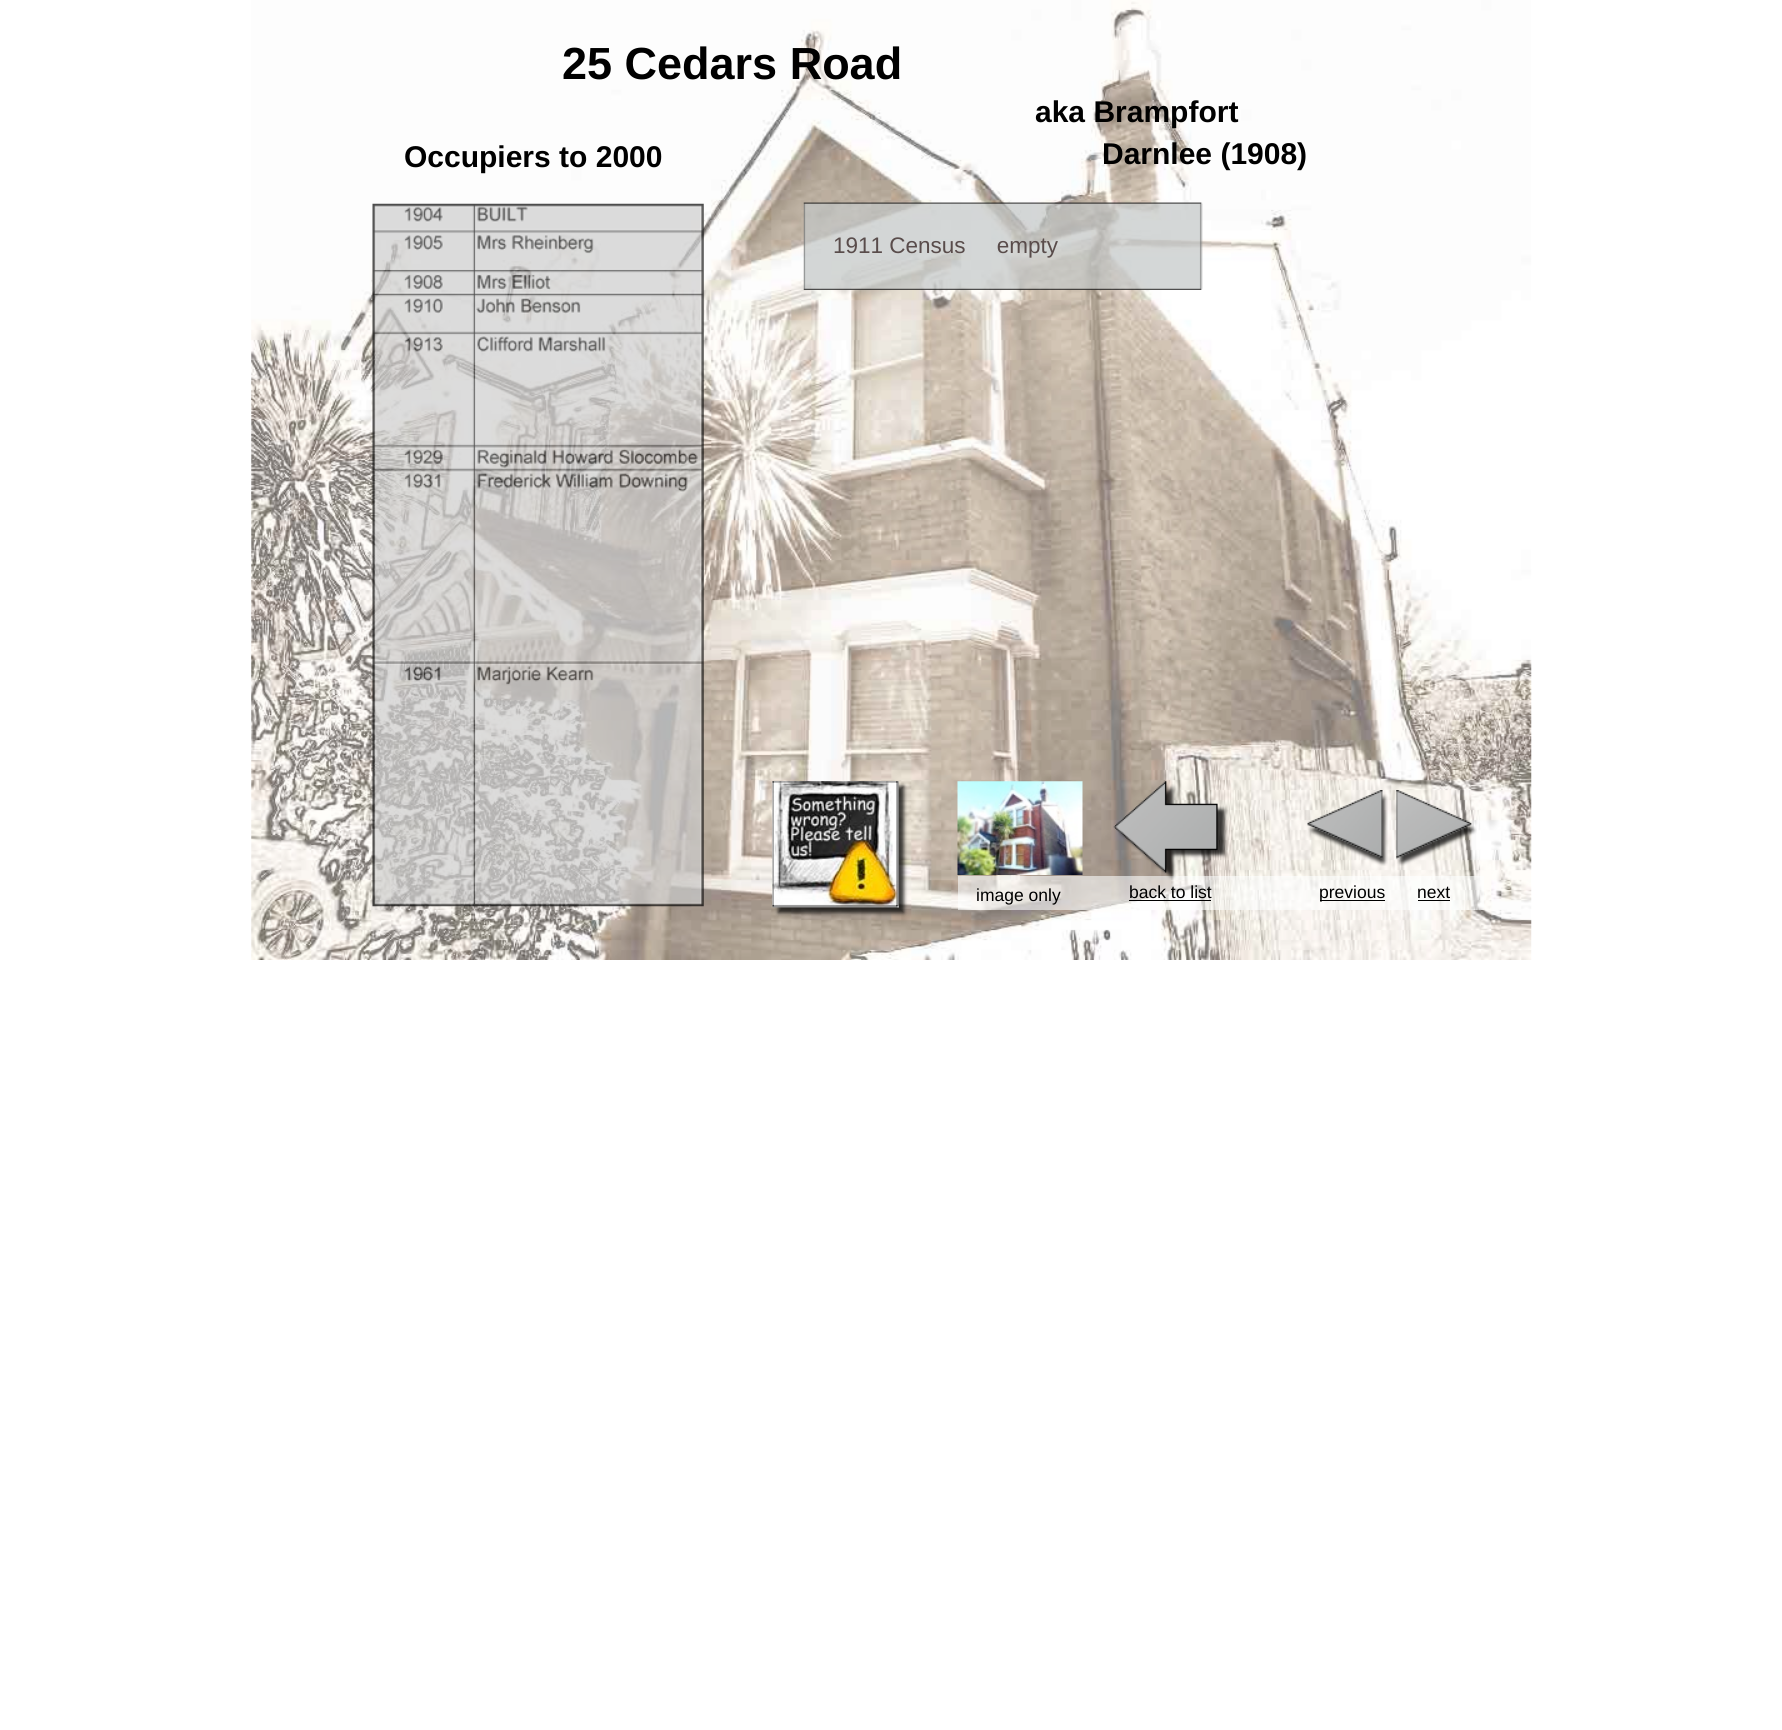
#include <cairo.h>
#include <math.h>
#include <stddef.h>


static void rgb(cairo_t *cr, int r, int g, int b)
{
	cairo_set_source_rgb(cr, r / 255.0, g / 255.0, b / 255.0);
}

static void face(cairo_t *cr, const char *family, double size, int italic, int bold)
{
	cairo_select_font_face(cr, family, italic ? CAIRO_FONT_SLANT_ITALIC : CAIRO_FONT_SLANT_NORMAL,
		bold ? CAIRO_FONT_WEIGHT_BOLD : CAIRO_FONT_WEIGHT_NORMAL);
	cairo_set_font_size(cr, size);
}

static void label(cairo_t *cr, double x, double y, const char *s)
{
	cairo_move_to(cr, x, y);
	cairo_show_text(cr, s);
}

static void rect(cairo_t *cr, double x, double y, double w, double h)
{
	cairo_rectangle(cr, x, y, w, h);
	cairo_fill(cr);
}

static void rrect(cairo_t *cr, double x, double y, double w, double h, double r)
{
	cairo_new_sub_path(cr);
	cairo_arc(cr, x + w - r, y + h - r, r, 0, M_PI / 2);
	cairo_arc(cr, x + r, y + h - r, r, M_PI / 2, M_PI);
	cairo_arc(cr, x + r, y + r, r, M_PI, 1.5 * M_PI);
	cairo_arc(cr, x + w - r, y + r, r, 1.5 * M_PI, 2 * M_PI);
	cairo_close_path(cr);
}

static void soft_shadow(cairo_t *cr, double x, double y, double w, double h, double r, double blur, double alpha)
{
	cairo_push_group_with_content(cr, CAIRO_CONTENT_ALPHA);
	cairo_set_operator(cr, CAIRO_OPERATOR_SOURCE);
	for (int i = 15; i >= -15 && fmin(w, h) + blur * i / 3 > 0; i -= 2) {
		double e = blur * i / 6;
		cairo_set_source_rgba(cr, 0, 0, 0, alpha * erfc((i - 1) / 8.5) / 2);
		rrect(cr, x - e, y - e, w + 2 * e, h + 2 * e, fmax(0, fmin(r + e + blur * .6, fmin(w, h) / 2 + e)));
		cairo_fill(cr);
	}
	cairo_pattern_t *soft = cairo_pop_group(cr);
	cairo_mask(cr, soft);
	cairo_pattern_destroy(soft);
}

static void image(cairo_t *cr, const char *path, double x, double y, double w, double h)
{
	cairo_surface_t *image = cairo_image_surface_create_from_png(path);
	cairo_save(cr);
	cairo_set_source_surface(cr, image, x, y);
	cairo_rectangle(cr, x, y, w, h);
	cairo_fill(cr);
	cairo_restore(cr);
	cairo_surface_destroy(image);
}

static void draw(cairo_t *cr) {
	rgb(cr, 255, 255, 255);
	cairo_paint(cr);
	image(cr, "image0.png", 251, 0, 1281, 960);
	face(cr, "Liberation Sans", 45, 0, 1);
	rgb(cr, 0, 0, 0);
	label(cr, 562, 79, "25 Cedars Road");
	face(cr, "Liberation Sans", 30, 0, 1);
	label(cr, 404, 167, "Occupiers to 2000");
	label(cr, 1035, 122, "aka Brampfort");
	label(cr, 1102, 164, "Darnlee (1908)");
	image(cr, "image1.png", 372, 203, 332, 704);
	image(cr, "image2.png", 803, 202, 400, 88);
	face(cr, "Liberation Sans", 22.5, 0, 0);
	rgb(cr, 89, 76, 75);
	label(cr, 833, 253, "1911 Census     empty");
	image(cr, "image4.png", 772, 781, 126, 126);
	rgb(cr, 0, 0, 0);
	soft_shadow(cr, 778, 786, 126, 127, 0, 2, 0.75);
	image(cr, "image3.png", 772, 781, 127, 127);
	image(cr, "image5.png", 957, 781, 126, 94);
	cairo_set_source_rgba(cr, 0.996, 1, 1, 0.58);
	rect(cr, 958, 876, 526, 34);
	image(cr, "image7.png", 1118, 784, 110, 96);
	image(cr, "image6.png", 1113, 781, 105, 92);
	image(cr, "image9.png", 1308, 794, 80, 72);
	image(cr, "image8.png", 1307, 790, 76, 69);
	image(cr, "image11.png", 1397, 794, 80, 72);
	image(cr, "image10.png", 1396, 790, 76, 69);
	face(cr, "Liberation Sans", 17.5, 0, 0);
	rgb(cr, 0, 0, 0);
	label(cr, 976, 901, "image only");
	label(cr, 1129, 898, "back to list");
	rect(cr, 1129, 900, 82, 1);
	rect(cr, 1320, 900, 65, 1);
	label(cr, 1319, 898, "previous");
	label(cr, 1417, 898, "next");
	rect(cr, 1418, 900, 32, 1);
}

int main(void) {
	cairo_surface_t *surface = cairo_image_surface_create(CAIRO_FORMAT_RGB24, 1782, 1730);
	cairo_t *cr = cairo_create(surface);
	cairo_font_options_t *options = cairo_font_options_create();
	cairo_font_options_set_hint_metrics(options, CAIRO_HINT_METRICS_OFF);
	cairo_font_options_set_hint_style(options, CAIRO_HINT_STYLE_NONE);
	cairo_set_font_options(cr, options);
	cairo_set_miter_limit(cr, 4);
	draw(cr);
	cairo_surface_write_to_png(surface, "render.png");
	cairo_font_options_destroy(options);
	cairo_destroy(cr);
	cairo_surface_destroy(surface);
	return 0;
}
